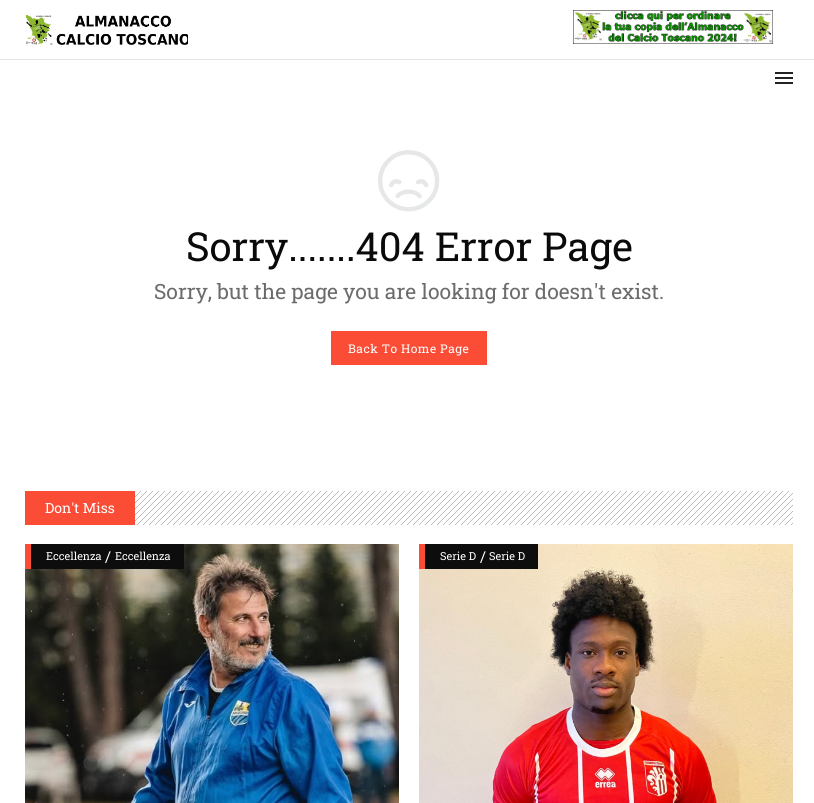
#include <cairo.h>
#include <math.h>
#include <stddef.h>


static void rgb(cairo_t *cr, int r, int g, int b)
{
	cairo_set_source_rgb(cr, r / 255.0, g / 255.0, b / 255.0);
}

static void face(cairo_t *cr, const char *family, double size, int italic, int bold)
{
	cairo_select_font_face(cr, family, italic ? CAIRO_FONT_SLANT_ITALIC : CAIRO_FONT_SLANT_NORMAL,
		bold ? CAIRO_FONT_WEIGHT_BOLD : CAIRO_FONT_WEIGHT_NORMAL);
	cairo_set_font_size(cr, size);
}

static void label(cairo_t *cr, double x, double y, const char *s)
{
	cairo_move_to(cr, x, y);
	cairo_show_text(cr, s);
}

static void tracked(cairo_t *cr, double x, double y, const char *s, double letter, double word)
{
	cairo_move_to(cr, x, y);
	while (*s) {
		char ch[5] = {0};
		int n = 0;
		do ch[n++] = *s++; while ((*s & 0xC0) == 0x80);
		cairo_show_text(cr, ch);
		cairo_rel_move_to(cr, letter + word * (*ch == ' '), 0);
	}
}

static void rect(cairo_t *cr, double x, double y, double w, double h)
{
	cairo_rectangle(cr, x, y, w, h);
	cairo_fill(cr);
}

static void image(cairo_t *cr, const char *path, double x, double y, double w, double h)
{
	cairo_surface_t *image = cairo_image_surface_create_from_png(path);
	cairo_save(cr);
	cairo_set_source_surface(cr, image, x, y);
	cairo_rectangle(cr, x, y, w, h);
	cairo_fill(cr);
	cairo_restore(cr);
	cairo_surface_destroy(image);
}

static void draw(cairo_t *cr) {
	rgb(cr, 255, 255, 255);
	cairo_paint(cr);
	rgb(cr, 228, 228, 228);
	rect(cr, 0, 59, 814, 1);
	image(cr, "image0.png", 26, 15, 162, 30);
	image(cr, "image1.png", 573, 10, 200, 34);
	rgb(cr, 34, 34, 34);
	rect(cr, 775, 72, 18, 2);
	rect(cr, 775, 77, 18, 2);
	rect(cr, 775, 82, 18, 2);
	image(cr, "image2.png", 378, 150, 62, 62);
	face(cr, "Roboto Slab", 40, 0, 0);
	rgb(cr, 10, 10, 10);
	label(cr, 186, 261, "Sorry.......404 Error Page");
	face(cr, "Roboto Slab", 21, 0, 0);
	rgb(cr, 108, 107, 107);
	label(cr, 154, 299, "Sorry, but the page you are looking for doesn't exist.");
	rgb(cr, 251, 76, 53);
	rect(cr, 331, 331, 156, 34);
	face(cr, "Roboto Slab", 12, 0, 0);
	rgb(cr, 255, 255, 255);
	tracked(cr, 348, 353, "Back To Home Page", 0.5, 0);
	image(cr, "image3.png", 135, 491, 658, 34);
	rgb(cr, 251, 76, 53);
	rect(cr, 25, 491, 110, 34);
	face(cr, "Roboto Slab", 14, 0, 0);
	rgb(cr, 255, 255, 255);
	label(cr, 45, 513, "Don't Miss");
	image(cr, "image4.png", 25, 544, 374, 259);
	rgb(cr, 13, 13, 13);
	rect(cr, 31, 544, 153, 25);
	rgb(cr, 251, 76, 53);
	rect(cr, 25, 544, 6, 25);
	face(cr, "Roboto Slab", 11, 0, 0);
	rgb(cr, 255, 255, 255);
	label(cr, 46, 560, "Eccellenza");
	face(cr, "Roboto Slab", 15, 0, 0);
	label(cr, 105, 562, "/");
	face(cr, "Roboto Slab", 11, 0, 0);
	label(cr, 115, 560, "Eccellenza");
	image(cr, "image5.png", 419, 544, 374, 259);
	rgb(cr, 13, 13, 13);
	rect(cr, 425, 544, 113, 25);
	rgb(cr, 251, 76, 53);
	rect(cr, 419, 544, 6, 25);
	rgb(cr, 255, 255, 255);
	label(cr, 440, 560, "Serie D");
	face(cr, "Roboto Slab", 15, 0, 0);
	label(cr, 480, 562, "/");
	face(cr, "Roboto Slab", 11, 0, 0);
	label(cr, 489, 560, "Serie D");
}

int main(void) {
	cairo_surface_t *surface = cairo_image_surface_create(CAIRO_FORMAT_RGB24, 814, 803);
	cairo_t *cr = cairo_create(surface);
	cairo_font_options_t *options = cairo_font_options_create();
	cairo_font_options_set_hint_metrics(options, CAIRO_HINT_METRICS_OFF);
	cairo_font_options_set_hint_style(options, CAIRO_HINT_STYLE_NONE);
	cairo_set_font_options(cr, options);
	cairo_set_miter_limit(cr, 4);
	draw(cr);
	cairo_surface_write_to_png(surface, "render.png");
	cairo_font_options_destroy(options);
	cairo_destroy(cr);
	cairo_surface_destroy(surface);
	return 0;
}
